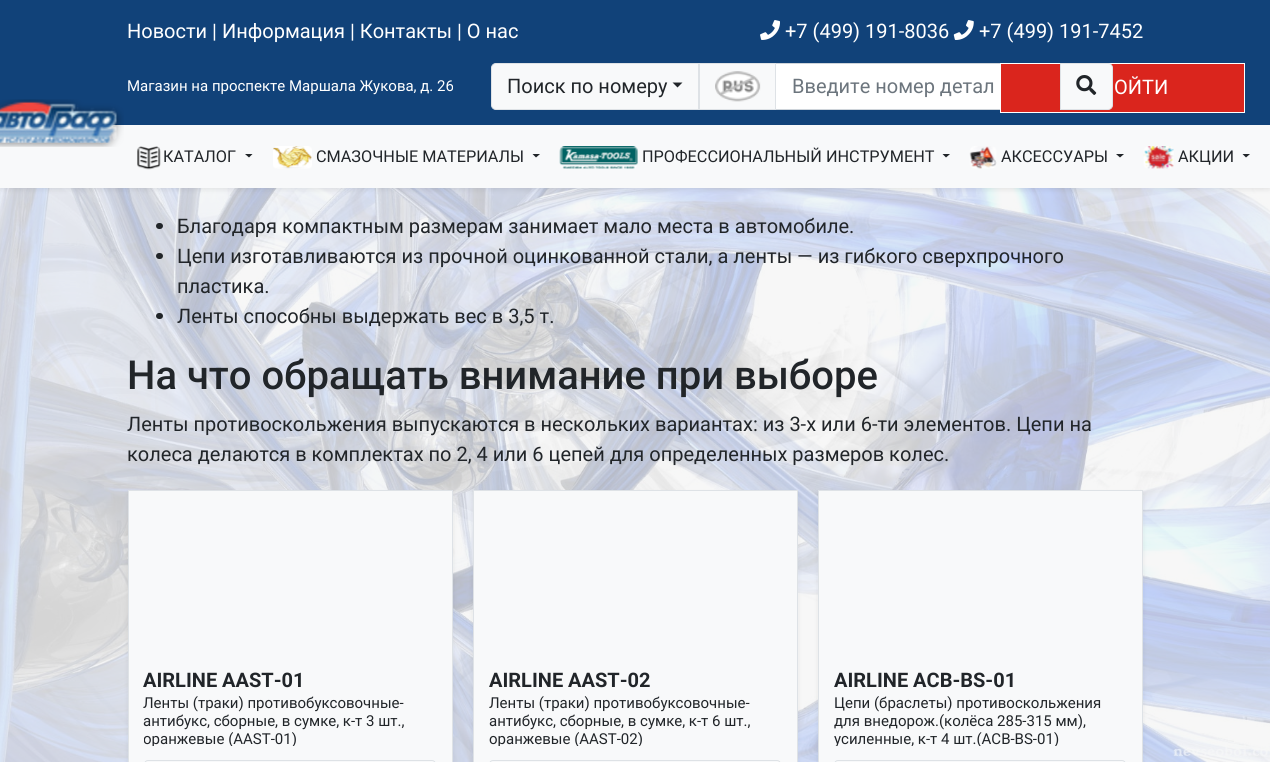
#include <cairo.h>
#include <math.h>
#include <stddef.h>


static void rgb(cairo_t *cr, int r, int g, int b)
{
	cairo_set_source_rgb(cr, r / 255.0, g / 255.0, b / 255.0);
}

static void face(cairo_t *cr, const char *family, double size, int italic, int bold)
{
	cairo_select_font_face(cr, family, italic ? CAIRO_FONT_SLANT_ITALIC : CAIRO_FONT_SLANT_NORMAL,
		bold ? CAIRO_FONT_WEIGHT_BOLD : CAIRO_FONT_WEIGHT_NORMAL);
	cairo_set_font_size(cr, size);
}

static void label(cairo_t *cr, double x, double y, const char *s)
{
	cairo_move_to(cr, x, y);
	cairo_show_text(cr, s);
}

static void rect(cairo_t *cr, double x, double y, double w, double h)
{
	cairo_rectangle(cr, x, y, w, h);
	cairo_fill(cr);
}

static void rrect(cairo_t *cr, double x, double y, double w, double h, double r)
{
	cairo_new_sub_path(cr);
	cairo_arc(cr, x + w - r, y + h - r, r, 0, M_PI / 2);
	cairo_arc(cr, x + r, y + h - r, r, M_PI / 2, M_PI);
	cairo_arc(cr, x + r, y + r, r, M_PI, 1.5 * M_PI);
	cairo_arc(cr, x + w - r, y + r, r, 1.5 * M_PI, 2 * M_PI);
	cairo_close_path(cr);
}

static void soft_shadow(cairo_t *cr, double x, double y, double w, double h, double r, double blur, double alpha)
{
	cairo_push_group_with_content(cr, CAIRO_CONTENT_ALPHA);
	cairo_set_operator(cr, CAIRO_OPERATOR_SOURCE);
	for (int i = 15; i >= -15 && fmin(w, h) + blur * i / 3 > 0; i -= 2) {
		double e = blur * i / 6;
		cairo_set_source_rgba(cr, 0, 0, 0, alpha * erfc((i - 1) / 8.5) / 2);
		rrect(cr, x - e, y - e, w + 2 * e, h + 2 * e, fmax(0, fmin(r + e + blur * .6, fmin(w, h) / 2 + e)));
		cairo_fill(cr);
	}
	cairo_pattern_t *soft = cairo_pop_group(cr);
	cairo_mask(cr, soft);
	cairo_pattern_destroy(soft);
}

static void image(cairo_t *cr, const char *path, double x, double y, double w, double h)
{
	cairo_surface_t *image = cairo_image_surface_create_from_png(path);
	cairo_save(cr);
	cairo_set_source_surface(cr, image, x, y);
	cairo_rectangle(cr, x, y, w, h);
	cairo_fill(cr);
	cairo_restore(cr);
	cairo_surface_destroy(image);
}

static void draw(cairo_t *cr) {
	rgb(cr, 244, 244, 244);
	cairo_paint(cr);
	rgb(cr, 17, 66, 121);
	rect(cr, 0, 0, 1270, 63);
	face(cr, "Roboto", 20, 0, 0);
	rgb(cr, 255, 255, 255);
	label(cr, 127, 38, "Новости | Информация | Контакты | О нас");
	image(cr, "image0.png", 760, 20, 20, 20);
	label(cr, 785, 38, "+7 (499) 191-8036");
	image(cr, "image1.png", 953, 20, 21, 20);
	label(cr, 979, 38, "+7 (499) 191-7452");
	image(cr, "image10.png", 0, 188, 1270, 574);
	rgb(cr, 0, 0, 0);
	soft_shadow(cr, 0, 128, 1270, 62, 0, 2.5, 0.07);
	rgb(cr, 17, 66, 121);
	rect(cr, 0, 63, 1270, 62);
	face(cr, "Roboto", 15, 0, 0);
	rgb(cr, 255, 255, 255);
	label(cr, 127, 91, "Магазин на проспекте Маршала Жукова, д. 26");
	rgb(cr, 248, 249, 250);
	cairo_new_path(cr);
	cairo_move_to(cr, 496, 63.5);
	cairo_line_to(cr, 698.5, 63.5);
	cairo_line_to(cr, 698.5, 109.5);
	cairo_line_to(cr, 496, 109.5);
	cairo_curve_to(cr, 493.5, 109.5, 491.5, 107.5, 491.5, 105);
	cairo_line_to(cr, 491.5, 68);
	cairo_curve_to(cr, 491.5, 65.5, 493.5, 63.5, 496, 63.5);
	cairo_close_path(cr);
	cairo_fill_preserve(cr);
	rgb(cr, 222, 226, 230);
	cairo_set_line_width(cr, 1);
	cairo_stroke(cr);
	face(cr, "Roboto", 20, 0, 0);
	rgb(cr, 33, 37, 41);
	label(cr, 507, 93, "Поиск по номеру");
	cairo_new_path(cr);
	cairo_move_to(cr, 672.5, 82.5);
	cairo_line_to(cr, 682.5, 82.5);
	cairo_line_to(cr, 677.5, 87.5);
	cairo_close_path(cr);
	cairo_fill(cr);
	rgb(cr, 255, 255, 255);
	rect(cr, 776, 64, 224, 45);
	cairo_rectangle(cr, 775.5, 63.5, 285, 46);
	rgb(cr, 206, 212, 218);
	cairo_stroke(cr);
	rgb(cr, 248, 249, 250);
	cairo_rectangle(cr, 699.5, 63.5, 76, 46);
	cairo_fill_preserve(cr);
	rgb(cr, 222, 226, 230);
	cairo_stroke(cr);
	image(cr, "image2.png", 715, 71, 46, 31);
	rgb(cr, 108, 117, 125);
	label(cr, 792, 93, "Введите номер детал");
	rgb(cr, 218, 37, 29);
	cairo_rectangle(cr, 1000.5, 63.5, 244, 49);
	cairo_fill_preserve(cr);
	rgb(cr, 255, 255, 255);
	cairo_stroke(cr);
	rgb(cr, 248, 249, 250);
	cairo_new_path(cr);
	cairo_move_to(cr, 1060.5, 63.5);
	cairo_line_to(cr, 1108, 63.5);
	cairo_curve_to(cr, 1110.5, 63.5, 1112.5, 65.5, 1112.5, 68);
	cairo_line_to(cr, 1112.5, 105);
	cairo_curve_to(cr, 1112.5, 107.5, 1110.5, 109.5, 1108, 109.5);
	cairo_line_to(cr, 1060.5, 109.5);
	cairo_close_path(cr);
	cairo_fill_preserve(cr);
	rgb(cr, 222, 226, 230);
	cairo_stroke(cr);
	image(cr, "image3.png", 1076, 75, 21, 20);
	rgb(cr, 255, 255, 255);
	label(cr, 1114, 94, "ОЙТИ");
	rgb(cr, 248, 249, 250);
	rect(cr, 0, 125, 1270, 63);
	image(cr, "image4.png", 0, 99, 124, 48);
	image(cr, "image5.png", 137, 146, 24, 24);
	face(cr, "Roboto", 16.25, 0, 0);
	rgb(cr, 33, 37, 41);
	label(cr, 163, 162, "КАТАЛОГ");
	cairo_new_path(cr);
	cairo_move_to(cr, 245, 154);
	cairo_line_to(cr, 252.5, 154);
	cairo_line_to(cr, 249, 157.5);
	cairo_close_path(cr);
	cairo_fill(cr);
	image(cr, "image6.png", 273, 146, 39, 23);
	label(cr, 316, 162, "СМАЗОЧНЫЕ МАТЕРИАЛЫ");
	cairo_new_path(cr);
	cairo_move_to(cr, 532.5, 154);
	cairo_line_to(cr, 540, 154);
	cairo_line_to(cr, 536, 157.5);
	cairo_close_path(cr);
	cairo_fill(cr);
	image(cr, "image7.png", 559, 146, 79, 23);
	label(cr, 642, 162, "ПРОФЕССИОНАЛЬНЫЙ ИНСТРУМЕНТ");
	cairo_new_path(cr);
	cairo_move_to(cr, 942.5, 154);
	cairo_line_to(cr, 950, 154);
	cairo_line_to(cr, 946, 157.5);
	cairo_close_path(cr);
	cairo_fill(cr);
	image(cr, "image8.png", 969, 146, 28, 23);
	label(cr, 1001, 162, "АКСЕССУАРЫ");
	cairo_new_path(cr);
	cairo_move_to(cr, 1116, 154);
	cairo_line_to(cr, 1124, 154);
	cairo_line_to(cr, 1120, 157.5);
	cairo_close_path(cr);
	cairo_fill(cr);
	image(cr, "image9.png", 1143, 146, 31, 23);
	label(cr, 1178, 162, "АКЦИИ");
	cairo_new_path(cr);
	cairo_move_to(cr, 1242.5, 154);
	cairo_line_to(cr, 1250, 154);
	cairo_line_to(cr, 1246, 157.5);
	cairo_close_path(cr);
	cairo_fill(cr);
	rrect(cr, 156, 223, 7, 6, 3);
	cairo_fill(cr);
	face(cr, "Roboto", 20, 0, 0);
	label(cr, 177, 233, "Благодаря компактным размерам занимает мало места в автомобиле.");
	rrect(cr, 156, 253, 7, 6, 3);
	cairo_fill(cr);
	label(cr, 177, 263, "Цепи изготавливаются из прочной оцинкованной стали, а ленты — из гибкого сверхпрочного");
	label(cr, 177, 293, "пластика.");
	rrect(cr, 156, 313, 7, 6, 3);
	cairo_fill(cr);
	label(cr, 177, 323, "Ленты способны выдержать вес в 3,5 т.");
	face(cr, "Roboto Medium", 40, 0, 0);
	label(cr, 127, 389, "На что обращать внимание при выборе");
	face(cr, "Roboto", 20, 0, 0);
	label(cr, 127, 431, "Ленты противоскольжения выпускаются в нескольких вариантах: из 3-х или 6-ти элементов. Цепи на");
	label(cr, 127, 461, "колеса делаются в комплектах по 2, 4 или 6 цепей для определенных размеров колес.");
	rgb(cr, 0, 0, 0);
	soft_shadow(cr, 128, 493, 325, 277, 0, 2.5, 0.07);
	rgb(cr, 248, 249, 250);
	cairo_rectangle(cr, 128.5, 490.5, 324, 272);
	cairo_fill_preserve(cr);
	rgb(cr, 222, 226, 230);
	cairo_stroke(cr);
	face(cr, "Roboto", 20, 0, 1);
	rgb(cr, 33, 37, 41);
	label(cr, 143, 687, "AIRLINE AAST-01");
	face(cr, "Roboto", 15, 0, 0);
	label(cr, 143, 708, "Ленты (траки) противобуксовочные-");
	label(cr, 143, 726, "антибукс, сборные, в сумке, к-т 3 шт.,");
	cairo_save(cr);
	cairo_rectangle(cr, 144, 694, 292, 52);
	cairo_clip(cr);
	label(cr, 143, 744, "оранжевые (AAST-01)");
	cairo_restore(cr);
	rrect(cr, 144.5, 760.5, 291, 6, 3.5);
	rgb(cr, 222, 226, 230);
	cairo_stroke(cr);
	rgb(cr, 0, 0, 0);
	soft_shadow(cr, 473, 493, 325, 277, 0, 2.5, 0.07);
	rgb(cr, 248, 249, 250);
	cairo_rectangle(cr, 473.5, 490.5, 324, 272);
	cairo_fill_preserve(cr);
	rgb(cr, 222, 226, 230);
	cairo_stroke(cr);
	face(cr, "Roboto", 20, 0, 1);
	rgb(cr, 33, 37, 41);
	label(cr, 489, 687, "AIRLINE AAST-02");
	face(cr, "Roboto", 15, 0, 0);
	label(cr, 489, 708, "Ленты (траки) противобуксовочные-");
	label(cr, 489, 726, "антибукс, сборные, в сумке, к-т 6 шт.,");
	cairo_save(cr);
	cairo_rectangle(cr, 489, 694, 292, 52);
	cairo_clip(cr);
	label(cr, 489, 744, "оранжевые (AAST-02)");
	cairo_restore(cr);
	rrect(cr, 489.5, 760.5, 291, 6, 3.5);
	rgb(cr, 222, 226, 230);
	cairo_stroke(cr);
	rgb(cr, 0, 0, 0);
	soft_shadow(cr, 818, 493, 325, 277, 0, 2.5, 0.07);
	rgb(cr, 248, 249, 250);
	cairo_rectangle(cr, 818.5, 490.5, 324, 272);
	cairo_fill_preserve(cr);
	rgb(cr, 222, 226, 230);
	cairo_stroke(cr);
	face(cr, "Roboto", 20, 0, 1);
	rgb(cr, 33, 37, 41);
	label(cr, 834, 687, "AIRLINE ACB-BS-01");
	face(cr, "Roboto", 15, 0, 0);
	label(cr, 834, 708, "Цепи (браслеты) противоскольжения");
	label(cr, 834, 726, "для внедорож.(колёса 285-315 мм),");
	cairo_save(cr);
	cairo_rectangle(cr, 834, 694, 292, 52);
	cairo_clip(cr);
	label(cr, 834, 744, "усиленные, к-т 4 шт.(ACB-BS-01)");
	cairo_restore(cr);
	rrect(cr, 834.5, 760.5, 291, 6, 3.5);
	rgb(cr, 222, 226, 230);
	cairo_stroke(cr);
}

int main(void) {
	cairo_surface_t *surface = cairo_image_surface_create(CAIRO_FORMAT_RGB24, 1270, 762);
	cairo_t *cr = cairo_create(surface);
	cairo_font_options_t *options = cairo_font_options_create();
	cairo_font_options_set_hint_metrics(options, CAIRO_HINT_METRICS_OFF);
	cairo_font_options_set_hint_style(options, CAIRO_HINT_STYLE_NONE);
	cairo_set_font_options(cr, options);
	cairo_set_miter_limit(cr, 4);
	draw(cr);
	cairo_surface_write_to_png(surface, "render.png");
	cairo_font_options_destroy(options);
	cairo_destroy(cr);
	cairo_surface_destroy(surface);
	return 0;
}
